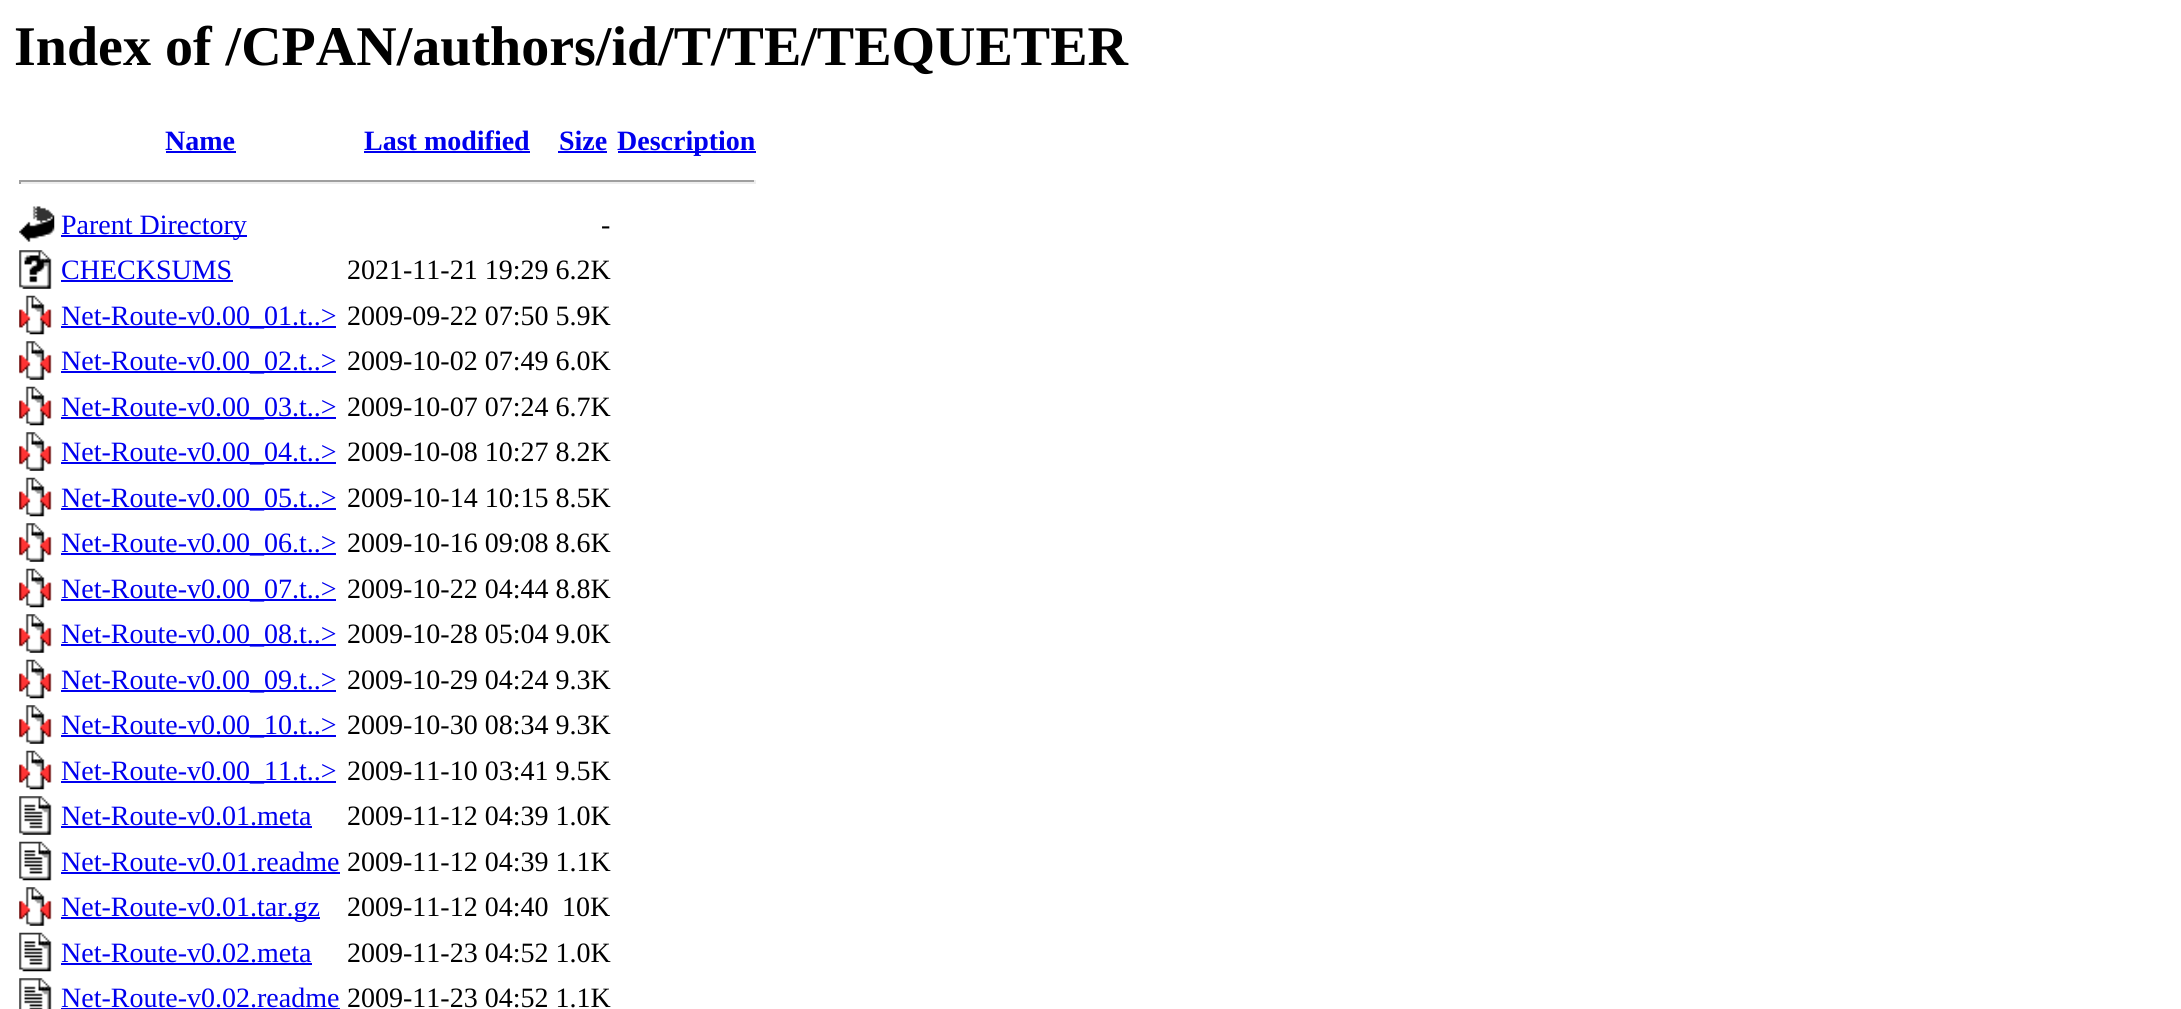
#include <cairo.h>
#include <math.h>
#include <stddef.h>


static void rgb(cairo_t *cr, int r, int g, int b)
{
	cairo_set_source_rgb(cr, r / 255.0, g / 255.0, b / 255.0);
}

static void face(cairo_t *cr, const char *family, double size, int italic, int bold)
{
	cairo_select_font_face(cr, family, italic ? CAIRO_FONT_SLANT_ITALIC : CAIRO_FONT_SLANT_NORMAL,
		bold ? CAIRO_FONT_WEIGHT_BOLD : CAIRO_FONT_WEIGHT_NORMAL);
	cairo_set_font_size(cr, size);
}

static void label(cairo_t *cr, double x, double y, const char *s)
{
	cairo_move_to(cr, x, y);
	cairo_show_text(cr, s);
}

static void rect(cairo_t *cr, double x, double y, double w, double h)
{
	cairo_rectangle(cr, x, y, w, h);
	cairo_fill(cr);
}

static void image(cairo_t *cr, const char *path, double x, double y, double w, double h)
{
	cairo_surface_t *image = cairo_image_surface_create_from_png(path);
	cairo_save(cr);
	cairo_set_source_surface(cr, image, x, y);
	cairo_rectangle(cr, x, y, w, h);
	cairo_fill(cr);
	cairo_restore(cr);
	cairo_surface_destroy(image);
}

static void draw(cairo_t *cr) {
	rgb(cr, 255, 255, 255);
	cairo_paint(cr);
	face(cr, "Liberation Serif", 56, 0, 1);
	rgb(cr, 0, 0, 0);
	label(cr, 14, 65, "Index of /CPAN/authors/id/T/TE/TEQUETER");
	face(cr, "Liberation Serif", 28, 0, 1);
	rgb(cr, 0, 0, 238);
	label(cr, 165, 150, "Name");
	rect(cr, 166, 151, 70, 2);
	label(cr, 364, 150, "Last modified");
	rect(cr, 364, 151, 166, 2);
	label(cr, 559, 150, "Size");
	rect(cr, 558, 151, 49, 2);
	rect(cr, 618, 151, 138, 2);
	label(cr, 617, 150, "Description");
	rgb(cr, 159, 159, 159);
	rect(cr, 19, 180, 737, 2);
	rgb(cr, 238, 238, 238);
	rect(cr, 754, 180, 2, 4);
	rect(cr, 19, 182, 737, 2);
	rgb(cr, 159, 159, 159);
	rect(cr, 19, 180, 2, 4);
	image(cr, "image0.png", 19, 206, 36, 36);
	rgb(cr, 0, 0, 238);
	rect(cr, 61, 235, 186, 2);
	face(cr, "Liberation Serif", 28, 0, 0);
	label(cr, 61, 234, "Parent Directory");
	rgb(cr, 0, 0, 0);
	label(cr, 601, 234, "-");
	image(cr, "image1.png", 19, 250, 33, 39);
	rgb(cr, 0, 0, 238);
	label(cr, 61, 279, "CHECKSUMS");
	rect(cr, 61, 280, 172, 2);
	rgb(cr, 0, 0, 0);
	label(cr, 347, 279, "2021-11-21 19:29 6.2K");
	image(cr, "image2.png", 19, 295, 33, 40);
	rgb(cr, 0, 0, 238);
	rect(cr, 61, 326, 275, 2);
	label(cr, 61, 325, "Net-Route-v0.00_01.t..>");
	rgb(cr, 0, 0, 0);
	label(cr, 347, 325, "2009-09-22 07:50 5.9K");
	image(cr, "image3.png", 19, 341, 33, 39);
	rgb(cr, 0, 0, 238);
	rect(cr, 61, 371, 275, 2);
	label(cr, 61, 370, "Net-Route-v0.00_02.t..>");
	rgb(cr, 0, 0, 0);
	label(cr, 347, 370, "2009-10-02 07:49 6.0K");
	image(cr, "image2.png", 19, 386, 33, 40);
	rgb(cr, 0, 0, 238);
	rect(cr, 61, 417, 275, 2);
	label(cr, 61, 416, "Net-Route-v0.00_03.t..>");
	rgb(cr, 0, 0, 0);
	label(cr, 347, 416, "2009-10-07 07:24 6.7K");
	image(cr, "image3.png", 19, 432, 33, 39);
	rgb(cr, 0, 0, 238);
	rect(cr, 61, 462, 275, 2);
	label(cr, 61, 461, "Net-Route-v0.00_04.t..>");
	rgb(cr, 0, 0, 0);
	label(cr, 347, 461, "2009-10-08 10:27 8.2K");
	image(cr, "image2.png", 19, 477, 33, 40);
	rgb(cr, 0, 0, 238);
	rect(cr, 61, 508, 275, 2);
	label(cr, 61, 507, "Net-Route-v0.00_05.t..>");
	rgb(cr, 0, 0, 0);
	label(cr, 347, 507, "2009-10-14 10:15 8.5K");
	image(cr, "image3.png", 19, 523, 33, 39);
	rgb(cr, 0, 0, 238);
	rect(cr, 61, 553, 275, 2);
	label(cr, 61, 552, "Net-Route-v0.00_06.t..>");
	rgb(cr, 0, 0, 0);
	label(cr, 347, 552, "2009-10-16 09:08 8.6K");
	image(cr, "image2.png", 19, 568, 33, 40);
	rgb(cr, 0, 0, 238);
	rect(cr, 61, 599, 275, 2);
	label(cr, 61, 598, "Net-Route-v0.00_07.t..>");
	rgb(cr, 0, 0, 0);
	label(cr, 347, 598, "2009-10-22 04:44 8.8K");
	image(cr, "image3.png", 19, 614, 33, 39);
	rgb(cr, 0, 0, 238);
	rect(cr, 61, 644, 275, 2);
	label(cr, 61, 643, "Net-Route-v0.00_08.t..>");
	rgb(cr, 0, 0, 0);
	label(cr, 347, 643, "2009-10-28 05:04 9.0K");
	image(cr, "image2.png", 19, 659, 33, 40);
	rgb(cr, 0, 0, 238);
	rect(cr, 61, 690, 275, 2);
	label(cr, 61, 689, "Net-Route-v0.00_09.t..>");
	rgb(cr, 0, 0, 0);
	label(cr, 347, 689, "2009-10-29 04:24 9.3K");
	image(cr, "image3.png", 19, 705, 33, 39);
	rgb(cr, 0, 0, 238);
	rect(cr, 61, 735, 275, 2);
	label(cr, 61, 734, "Net-Route-v0.00_10.t..>");
	rgb(cr, 0, 0, 0);
	label(cr, 347, 734, "2009-10-30 08:34 9.3K");
	image(cr, "image2.png", 19, 750, 33, 40);
	rgb(cr, 0, 0, 238);
	rect(cr, 61, 781, 275, 2);
	label(cr, 61, 780, "Net-Route-v0.00_11.t..>");
	rgb(cr, 0, 0, 0);
	label(cr, 347, 780, "2009-11-10 03:41 9.5K");
	image(cr, "image4.png", 19, 796, 33, 39);
	rgb(cr, 0, 0, 238);
	label(cr, 61, 825, "Net-Route-v0.01.meta");
	rect(cr, 61, 826, 251, 2);
	rgb(cr, 0, 0, 0);
	label(cr, 347, 825, "2009-11-12 04:39 1.0K");
	image(cr, "image5.png", 19, 841, 33, 40);
	rgb(cr, 0, 0, 238);
	label(cr, 61, 871, "Net-Route-v0.01.readme");
	rect(cr, 61, 872, 279, 2);
	rgb(cr, 0, 0, 0);
	label(cr, 347, 871, "2009-11-12 04:39 1.1K");
	image(cr, "image3.png", 19, 887, 33, 39);
	rgb(cr, 0, 0, 238);
	rect(cr, 61, 917, 259, 2);
	label(cr, 61, 916, "Net-Route-v0.01.tar.gz");
	rgb(cr, 0, 0, 0);
	label(cr, 347, 916, "2009-11-12 04:40");
	label(cr, 562, 916, "10K");
	image(cr, "image5.png", 19, 932, 33, 40);
	rgb(cr, 0, 0, 238);
	label(cr, 61, 962, "Net-Route-v0.02.meta");
	rect(cr, 61, 963, 251, 2);
	rgb(cr, 0, 0, 0);
	label(cr, 347, 962, "2009-11-23 04:52 1.0K");
	image(cr, "image6.png", 19, 978, 33, 31);
	rgb(cr, 0, 0, 238);
	label(cr, 61, 1007, "Net-Route-v0.02.readme");
	rect(cr, 61, 1008, 279, 1);
	rgb(cr, 0, 0, 0);
	label(cr, 347, 1007, "2009-11-23 04:52 1.1K");
}

int main(void) {
	cairo_surface_t *surface = cairo_image_surface_create(CAIRO_FORMAT_RGB24, 2181, 1009);
	cairo_t *cr = cairo_create(surface);
	cairo_font_options_t *options = cairo_font_options_create();
	cairo_font_options_set_hint_metrics(options, CAIRO_HINT_METRICS_OFF);
	cairo_font_options_set_hint_style(options, CAIRO_HINT_STYLE_NONE);
	cairo_set_font_options(cr, options);
	cairo_set_miter_limit(cr, 4);
	draw(cr);
	cairo_surface_write_to_png(surface, "render.png");
	cairo_font_options_destroy(options);
	cairo_destroy(cr);
	cairo_surface_destroy(surface);
	return 0;
}
